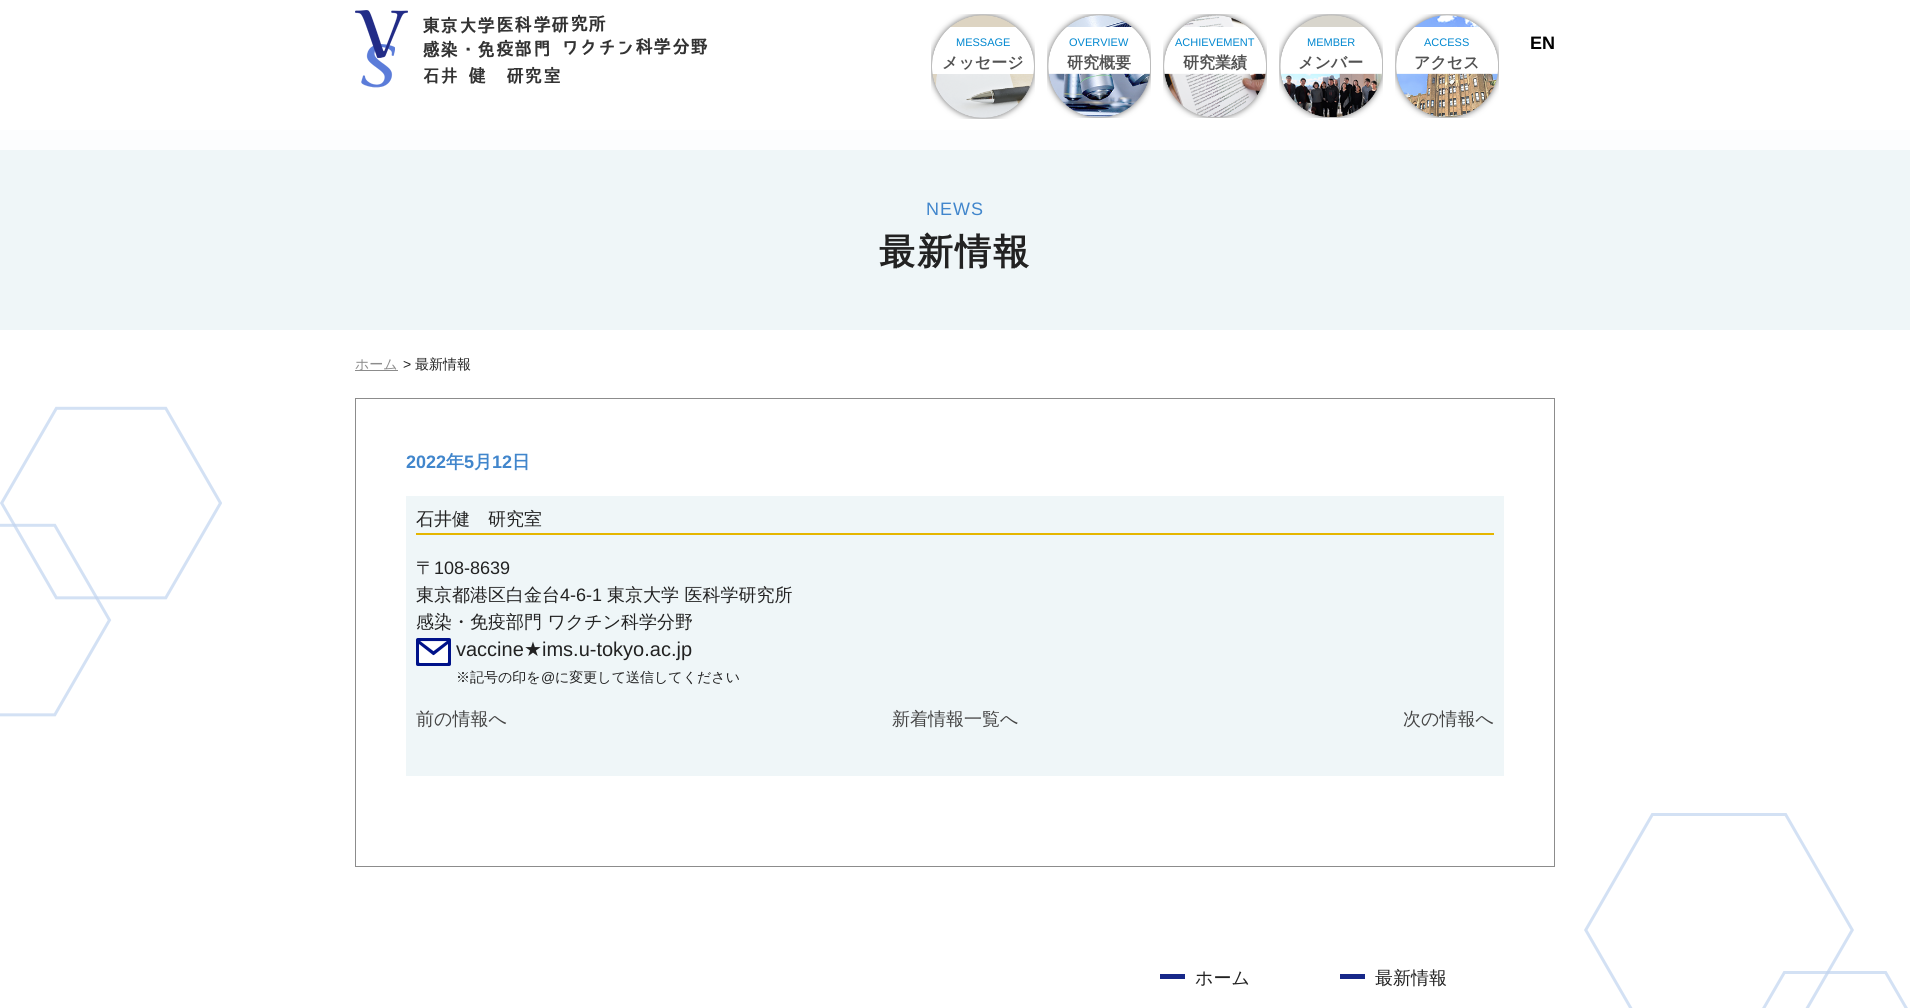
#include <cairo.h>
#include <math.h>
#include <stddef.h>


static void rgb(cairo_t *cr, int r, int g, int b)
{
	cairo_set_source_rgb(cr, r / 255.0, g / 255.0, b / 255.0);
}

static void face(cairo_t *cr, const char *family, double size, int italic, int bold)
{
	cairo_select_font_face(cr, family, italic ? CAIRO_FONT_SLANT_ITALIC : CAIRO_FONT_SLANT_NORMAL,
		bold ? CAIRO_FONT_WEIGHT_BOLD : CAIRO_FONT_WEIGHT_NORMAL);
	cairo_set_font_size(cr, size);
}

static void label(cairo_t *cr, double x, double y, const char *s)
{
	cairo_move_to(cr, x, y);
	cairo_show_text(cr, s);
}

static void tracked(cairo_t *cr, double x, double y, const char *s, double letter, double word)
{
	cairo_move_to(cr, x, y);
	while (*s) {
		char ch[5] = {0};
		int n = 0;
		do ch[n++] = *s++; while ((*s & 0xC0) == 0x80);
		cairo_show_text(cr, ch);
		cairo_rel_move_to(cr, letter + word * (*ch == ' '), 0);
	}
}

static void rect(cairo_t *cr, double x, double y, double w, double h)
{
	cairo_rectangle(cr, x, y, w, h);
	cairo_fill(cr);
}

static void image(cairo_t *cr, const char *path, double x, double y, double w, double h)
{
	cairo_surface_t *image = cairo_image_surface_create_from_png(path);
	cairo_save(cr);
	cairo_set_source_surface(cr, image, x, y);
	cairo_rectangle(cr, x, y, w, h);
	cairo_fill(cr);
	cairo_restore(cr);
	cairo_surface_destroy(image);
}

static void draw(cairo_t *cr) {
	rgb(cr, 255, 255, 255);
	cairo_paint(cr);
	image(cr, "image0.png", 355, 10, 353, 78);
	image(cr, "image1.png", 931, 14, 104, 105);
	face(cr, "Liberation Sans", 11, 0, 0);
	rgb(cr, 0, 135, 208);
	label(cr, 956, 46, "MESSAGE");
	face(cr, "WenQuanYi Zen Hei", 16, 0, 1);
	rgb(cr, 82, 82, 82);
	label(cr, 942, 68, "メッセージ");
	image(cr, "image2.png", 1047, 14, 104, 104);
	face(cr, "Liberation Sans", 11, 0, 0);
	rgb(cr, 0, 135, 208);
	label(cr, 1069, 46, "OVERVIEW");
	face(cr, "WenQuanYi Zen Hei", 16, 0, 1);
	rgb(cr, 82, 82, 82);
	label(cr, 1067, 68, "研究概要");
	image(cr, "image3.png", 1163, 14, 104, 104);
	face(cr, "Liberation Sans", 11, 0, 0);
	rgb(cr, 0, 135, 208);
	label(cr, 1175, 46, "ACHIEVEMENT");
	face(cr, "WenQuanYi Zen Hei", 16, 0, 1);
	rgb(cr, 82, 82, 82);
	label(cr, 1183, 68, "研究業績");
	image(cr, "image4.png", 1279, 14, 104, 104);
	face(cr, "Liberation Sans", 11, 0, 0);
	rgb(cr, 0, 135, 208);
	label(cr, 1307, 46, "MEMBER");
	face(cr, "WenQuanYi Zen Hei", 16, 0, 1);
	rgb(cr, 82, 82, 82);
	label(cr, 1298, 68, "メンバー");
	image(cr, "image5.png", 1395, 14, 104, 104);
	face(cr, "Liberation Sans", 11, 0, 0);
	rgb(cr, 0, 135, 208);
	label(cr, 1424, 46, "ACCESS");
	face(cr, "WenQuanYi Zen Hei", 16, 0, 1);
	rgb(cr, 82, 82, 82);
	label(cr, 1414, 68, "アクセス");
	face(cr, "Liberation Sans", 18, 0, 1);
	rgb(cr, 0, 0, 0);
	label(cr, 1530, 49, "EN");
	rgb(cr, 239, 246, 248);
	rect(cr, 0, 150, 1910, 180);
	rgb(cr, 252, 253, 254);
	rect(cr, 0, 130, 1910, 20);
	face(cr, "Liberation Sans", 18, 0, 0);
	rgb(cr, 65, 134, 204);
	tracked(cr, 926, 215, "NEWS", 1, 0);
	face(cr, "WenQuanYi Zen Hei", 36, 0, 1);
	rgb(cr, 34, 34, 34);
	tracked(cr, 879, 264, "最新情報", 2, 0);
	rgb(cr, 140, 140, 140);
	rect(cr, 355, 370, 43, 1);
	face(cr, "WenQuanYi Zen Hei Medium", 14, 0, 0);
	label(cr, 355, 369, "ホーム");
	face(cr, "Liberation Sans", 14, 0, 0);
	rgb(cr, 34, 34, 34);
	label(cr, 403, 369, ">");
	face(cr, "WenQuanYi Zen Hei Medium", 14, 0, 0);
	label(cr, 415, 369, "最新情報");
	image(cr, "image6.png", 0, 406, 222, 311);
	cairo_rectangle(cr, 355.5, 398.5, 1199, 468);
	rgb(cr, 140, 140, 140);
	cairo_set_line_width(cr, 1);
	cairo_stroke(cr);
	face(cr, "Liberation Sans", 18, 0, 1);
	rgb(cr, 65, 134, 204);
	label(cr, 406, 468, "2022");
	face(cr, "WenQuanYi Zen Hei", 18, 0, 1);
	label(cr, 446, 468, "年");
	face(cr, "Liberation Sans", 18, 0, 1);
	label(cr, 464, 468, "5");
	face(cr, "WenQuanYi Zen Hei", 18, 0, 1);
	label(cr, 474, 468, "月");
	face(cr, "Liberation Sans", 18, 0, 1);
	label(cr, 492, 468, "12");
	face(cr, "WenQuanYi Zen Hei", 18, 0, 1);
	label(cr, 512, 468, "日");
	rgb(cr, 239, 246, 248);
	rect(cr, 406, 496, 1098, 280);
	rgb(cr, 229, 182, 0);
	rect(cr, 416, 533, 1078, 2);
	face(cr, "WenQuanYi Zen Hei Medium", 18, 0, 0);
	rgb(cr, 34, 34, 34);
	label(cr, 416, 525, "石井健　研究室");
	label(cr, 416, 574, "〒");
	face(cr, "Liberation Sans", 18, 0, 0);
	label(cr, 434, 574, "108-8639");
	face(cr, "WenQuanYi Zen Hei Medium", 18, 0, 0);
	label(cr, 416, 601, "東京都港区白金台");
	face(cr, "Liberation Sans", 18, 0, 0);
	label(cr, 560, 601, "4-6-1");
	face(cr, "WenQuanYi Zen Hei Medium", 18, 0, 0);
	label(cr, 607, 601, "東京大学 医科学研究所");
	label(cr, 416, 628, "感染・免疫部門 ワクチン科学分野");
	image(cr, "image7.png", 416, 638, 35, 28);
	face(cr, "Liberation Sans", 20, 0, 0);
	label(cr, 456, 656, "vaccine");
	face(cr, "DejaVu Sans", 20, 0, 0);
	label(cr, 524, 656, "★");
	face(cr, "Liberation Sans", 20, 0, 0);
	label(cr, 542, 656, "ims.u-tokyo.ac.jp");
	face(cr, "WenQuanYi Zen Hei Medium", 14, 0, 0);
	label(cr, 456, 682, "※記号の印を");
	face(cr, "Liberation Sans", 14, 0, 0);
	label(cr, 541, 682, "@");
	face(cr, "WenQuanYi Zen Hei Medium", 14, 0, 0);
	label(cr, 555, 682, "に変更して送信してください");
	face(cr, "WenQuanYi Zen Hei Medium", 18, 0, 0);
	rgb(cr, 69, 69, 69);
	label(cr, 416, 725, "前の情報へ");
	label(cr, 892, 725, "新着情報一覧へ");
	label(cr, 1403, 725, "次の情報へ");
	rgb(cr, 23, 40, 137);
	rect(cr, 1160, 974, 25, 5);
	rgb(cr, 34, 34, 34);
	label(cr, 1195, 984, "ホーム");
	rgb(cr, 23, 40, 137);
	rect(cr, 1340, 974, 25, 5);
	rgb(cr, 34, 34, 34);
	label(cr, 1375, 984, "最新情報");
	image(cr, "image8.png", 1584, 813, 324, 195);
}

int main(void) {
	cairo_surface_t *surface = cairo_image_surface_create(CAIRO_FORMAT_RGB24, 1910, 1008);
	cairo_t *cr = cairo_create(surface);
	cairo_font_options_t *options = cairo_font_options_create();
	cairo_font_options_set_hint_metrics(options, CAIRO_HINT_METRICS_OFF);
	cairo_font_options_set_hint_style(options, CAIRO_HINT_STYLE_NONE);
	cairo_set_font_options(cr, options);
	cairo_set_miter_limit(cr, 4);
	draw(cr);
	cairo_surface_write_to_png(surface, "render.png");
	cairo_font_options_destroy(options);
	cairo_destroy(cr);
	cairo_surface_destroy(surface);
	return 0;
}
